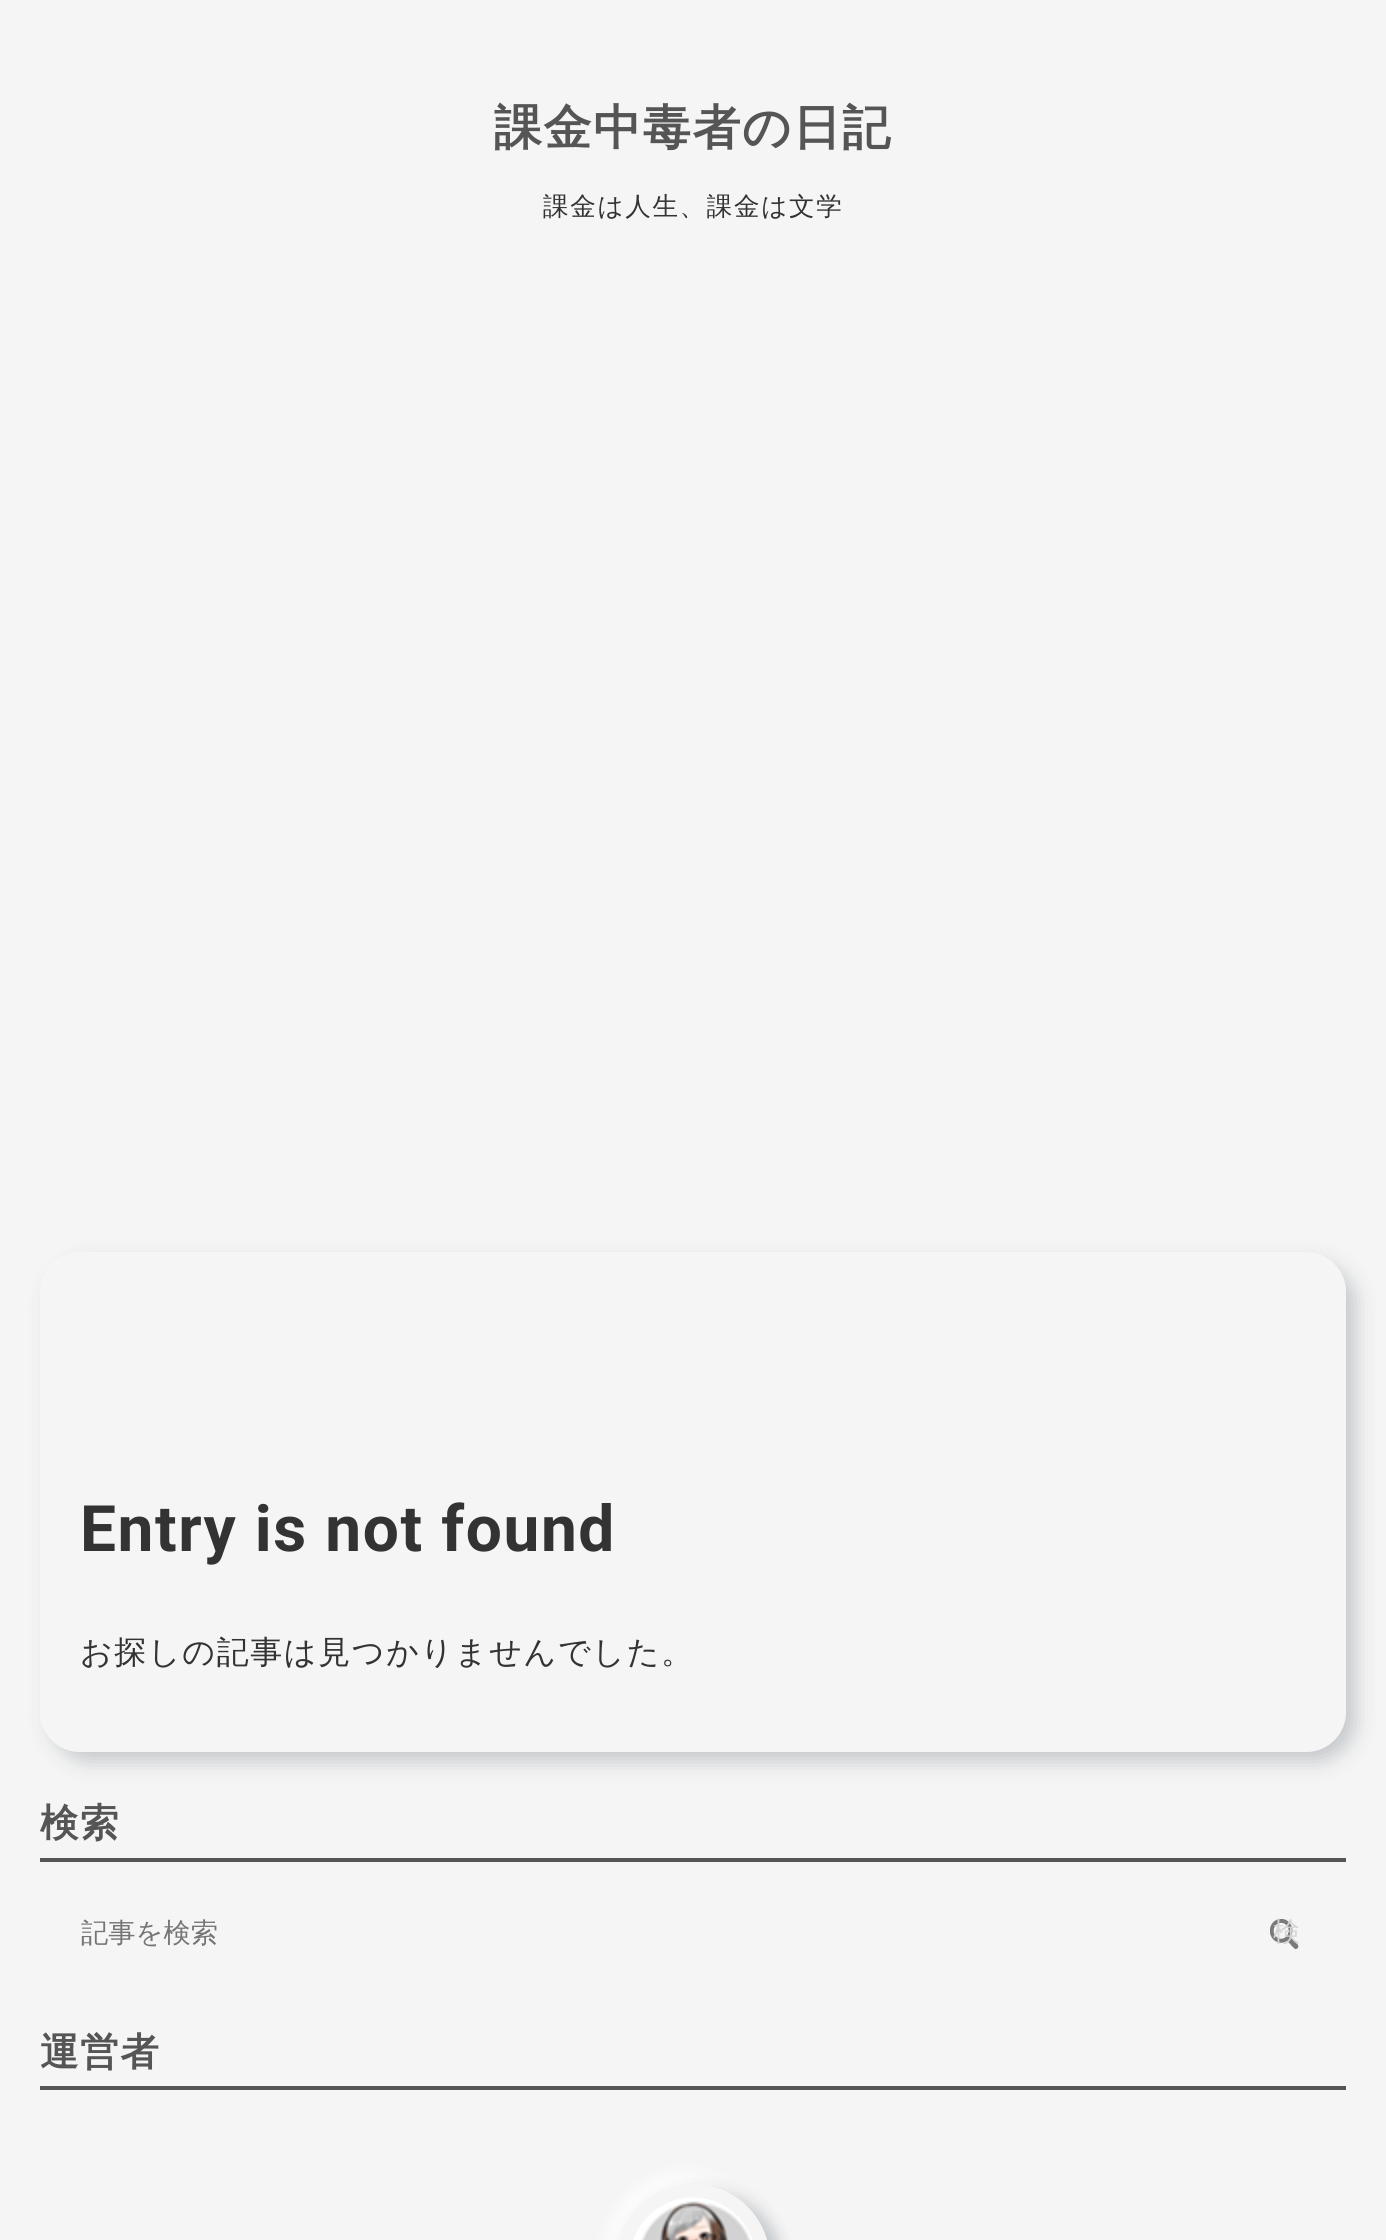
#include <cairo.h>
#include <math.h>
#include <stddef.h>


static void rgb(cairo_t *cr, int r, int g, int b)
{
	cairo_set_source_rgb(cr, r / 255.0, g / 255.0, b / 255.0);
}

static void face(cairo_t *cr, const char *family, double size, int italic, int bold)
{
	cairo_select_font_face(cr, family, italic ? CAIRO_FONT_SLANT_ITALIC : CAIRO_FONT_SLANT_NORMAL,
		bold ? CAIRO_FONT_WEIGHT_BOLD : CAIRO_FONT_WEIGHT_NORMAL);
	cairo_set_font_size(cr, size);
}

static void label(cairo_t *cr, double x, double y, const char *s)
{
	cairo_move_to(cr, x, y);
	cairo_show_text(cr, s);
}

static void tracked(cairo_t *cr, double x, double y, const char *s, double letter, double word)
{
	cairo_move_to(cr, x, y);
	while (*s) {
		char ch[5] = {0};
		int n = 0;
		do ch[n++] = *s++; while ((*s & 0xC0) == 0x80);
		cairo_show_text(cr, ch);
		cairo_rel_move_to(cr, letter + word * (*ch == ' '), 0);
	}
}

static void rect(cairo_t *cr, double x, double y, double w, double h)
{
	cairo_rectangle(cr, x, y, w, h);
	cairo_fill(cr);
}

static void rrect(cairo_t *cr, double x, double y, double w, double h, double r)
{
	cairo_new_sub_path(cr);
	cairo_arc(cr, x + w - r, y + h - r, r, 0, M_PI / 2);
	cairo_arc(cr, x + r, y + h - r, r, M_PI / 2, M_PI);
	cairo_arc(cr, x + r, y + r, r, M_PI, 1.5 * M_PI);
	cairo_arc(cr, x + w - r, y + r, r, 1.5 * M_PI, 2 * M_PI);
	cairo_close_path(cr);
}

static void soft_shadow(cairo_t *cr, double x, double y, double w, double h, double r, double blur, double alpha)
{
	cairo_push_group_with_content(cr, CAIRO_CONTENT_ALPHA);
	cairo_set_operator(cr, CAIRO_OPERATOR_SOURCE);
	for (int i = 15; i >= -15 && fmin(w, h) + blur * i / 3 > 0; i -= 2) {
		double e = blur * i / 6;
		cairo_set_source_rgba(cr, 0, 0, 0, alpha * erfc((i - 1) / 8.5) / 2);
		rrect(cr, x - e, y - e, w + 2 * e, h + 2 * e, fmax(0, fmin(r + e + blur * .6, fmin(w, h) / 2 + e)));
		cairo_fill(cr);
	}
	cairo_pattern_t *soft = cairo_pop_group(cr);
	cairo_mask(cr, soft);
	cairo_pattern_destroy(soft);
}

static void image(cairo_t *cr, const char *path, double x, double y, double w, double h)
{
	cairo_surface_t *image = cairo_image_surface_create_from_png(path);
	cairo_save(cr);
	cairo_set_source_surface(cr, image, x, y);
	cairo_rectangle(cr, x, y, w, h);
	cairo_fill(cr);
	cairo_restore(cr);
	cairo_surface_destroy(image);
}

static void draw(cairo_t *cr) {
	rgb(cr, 245, 245, 245);
	cairo_paint(cr);
	face(cr, "WenQuanYi Zen Hei", 48, 0, 1);
	rgb(cr, 85, 85, 85);
	tracked(cr, 494, 144, "課金中毒者の日記", 1.6, 0);
	face(cr, "WenQuanYi Zen Hei Medium", 25.6, 0, 0);
	rgb(cr, 51, 51, 51);
	tracked(cr, 543, 215, "課金は人生、課金は文学", 1.6, 0);
	cairo_save(cr);
	cairo_set_fill_rule(cr, CAIRO_FILL_RULE_EVEN_ODD);
	cairo_new_path(cr);
	cairo_move_to(cr, 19, 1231);
	cairo_line_to(cr, 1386, 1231);
	cairo_line_to(cr, 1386, 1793);
	cairo_line_to(cr, 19, 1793);
	cairo_close_path(cr);
	cairo_move_to(cr, 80, 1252);
	cairo_line_to(cr, 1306, 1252);
	cairo_curve_to(cr, 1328, 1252, 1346, 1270, 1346, 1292);
	cairo_line_to(cr, 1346, 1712);
	cairo_curve_to(cr, 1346, 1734, 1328, 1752, 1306, 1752);
	cairo_line_to(cr, 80, 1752);
	cairo_curve_to(cr, 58, 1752, 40, 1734, 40, 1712);
	cairo_line_to(cr, 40, 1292);
	cairo_curve_to(cr, 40, 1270, 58, 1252, 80, 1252);
	cairo_close_path(cr);
	cairo_clip(cr);
	rgb(cr, 198, 201, 204);
	soft_shadow(cr, 50, 1262, 1306, 500, 40, 10, 1);
	cairo_restore(cr);
	face(cr, "Roboto", 64, 0, 1);
	tracked(cr, 80, 1551, "Entry is not found", 1.6, 0);
	face(cr, "WenQuanYi Zen Hei Medium", 32, 0, 0);
	tracked(cr, 80, 1663, "お探しの記事は見つかりませんでした。", 1.6, 0);
	rgb(cr, 85, 85, 85);
	rect(cr, 40, 1858, 1306, 4);
	face(cr, "WenQuanYi Zen Hei", 38.5, 0, 1);
	tracked(cr, 40, 1836, "検索", 1.6, 0);
	face(cr, "WenQuanYi Zen Hei Medium", 27.25, 0, 0);
	rgb(cr, 117, 117, 117);
	label(cr, 81, 1942, "記事を検索");
	image(cr, "image0.png", 1270, 1919, 29, 30);
	rgb(cr, 212, 212, 212);
	label(cr, 1273, 1941, "検");
	rgb(cr, 85, 85, 85);
	rect(cr, 40, 2086, 1306, 4);
	face(cr, "WenQuanYi Zen Hei", 38.5, 0, 1);
	tracked(cr, 40, 2065, "運営者", 1.6, 0);
	cairo_save(cr);
	cairo_set_fill_rule(cr, CAIRO_FILL_RULE_EVEN_ODD);
	cairo_new_path(cr);
	cairo_move_to(cr, 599, 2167);
	cairo_line_to(cr, 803, 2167);
	cairo_line_to(cr, 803, 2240);
	cairo_line_to(cr, 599, 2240);
	cairo_close_path(cr);
	cairo_move_to(cr, 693, 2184);
	cairo_curve_to(cr, 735.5, 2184, 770, 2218.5, 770, 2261);
	cairo_curve_to(cr, 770, 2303.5, 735.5, 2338, 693, 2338);
	cairo_curve_to(cr, 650.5, 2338, 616, 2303.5, 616, 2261);
	cairo_curve_to(cr, 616, 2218.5, 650.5, 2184, 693, 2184);
	cairo_close_path(cr);
	cairo_clip(cr);
	rgb(cr, 198, 201, 204);
	soft_shadow(cr, 624, 2192, 154, 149, 77, 8, 1);
	cairo_restore(cr);
	cairo_save(cr);
	cairo_set_fill_rule(cr, CAIRO_FILL_RULE_EVEN_ODD);
	cairo_new_path(cr);
	cairo_move_to(cr, 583, 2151);
	cairo_line_to(cr, 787, 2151);
	cairo_line_to(cr, 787, 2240);
	cairo_line_to(cr, 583, 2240);
	cairo_close_path(cr);
	cairo_move_to(cr, 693, 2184);
	cairo_curve_to(cr, 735.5, 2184, 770, 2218.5, 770, 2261);
	cairo_curve_to(cr, 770, 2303.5, 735.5, 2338, 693, 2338);
	cairo_curve_to(cr, 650.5, 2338, 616, 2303.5, 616, 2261);
	cairo_curve_to(cr, 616, 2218.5, 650.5, 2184, 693, 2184);
	cairo_close_path(cr);
	cairo_clip(cr);
	rgb(cr, 255, 255, 255);
	soft_shadow(cr, 608, 2176, 154, 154, 77, 8, 1);
	cairo_restore(cr);
	cairo_save(cr);
	cairo_set_fill_rule(cr, CAIRO_FILL_RULE_EVEN_ODD);
	cairo_new_path(cr);
	cairo_move_to(cr, 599, 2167);
	cairo_line_to(cr, 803, 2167);
	cairo_line_to(cr, 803, 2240);
	cairo_line_to(cr, 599, 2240);
	cairo_close_path(cr);
	cairo_move_to(cr, 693, 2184);
	cairo_curve_to(cr, 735.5, 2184, 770, 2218.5, 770, 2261);
	cairo_curve_to(cr, 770, 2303.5, 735.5, 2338, 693, 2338);
	cairo_curve_to(cr, 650.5, 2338, 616, 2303.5, 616, 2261);
	cairo_curve_to(cr, 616, 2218.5, 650.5, 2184, 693, 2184);
	cairo_close_path(cr);
	cairo_clip(cr);
	rgb(cr, 198, 201, 204);
	soft_shadow(cr, 624, 2192, 154, 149, 77, 8, 1);
	cairo_restore(cr);
	image(cr, "image1.png", 633, 2197, 120, 43);
}

int main(void) {
	cairo_surface_t *surface = cairo_image_surface_create(CAIRO_FORMAT_RGB24, 1386, 2240);
	cairo_t *cr = cairo_create(surface);
	cairo_font_options_t *options = cairo_font_options_create();
	cairo_font_options_set_hint_metrics(options, CAIRO_HINT_METRICS_OFF);
	cairo_font_options_set_hint_style(options, CAIRO_HINT_STYLE_NONE);
	cairo_set_font_options(cr, options);
	cairo_set_miter_limit(cr, 4);
	draw(cr);
	cairo_surface_write_to_png(surface, "render.png");
	cairo_font_options_destroy(options);
	cairo_destroy(cr);
	cairo_surface_destroy(surface);
	return 0;
}
